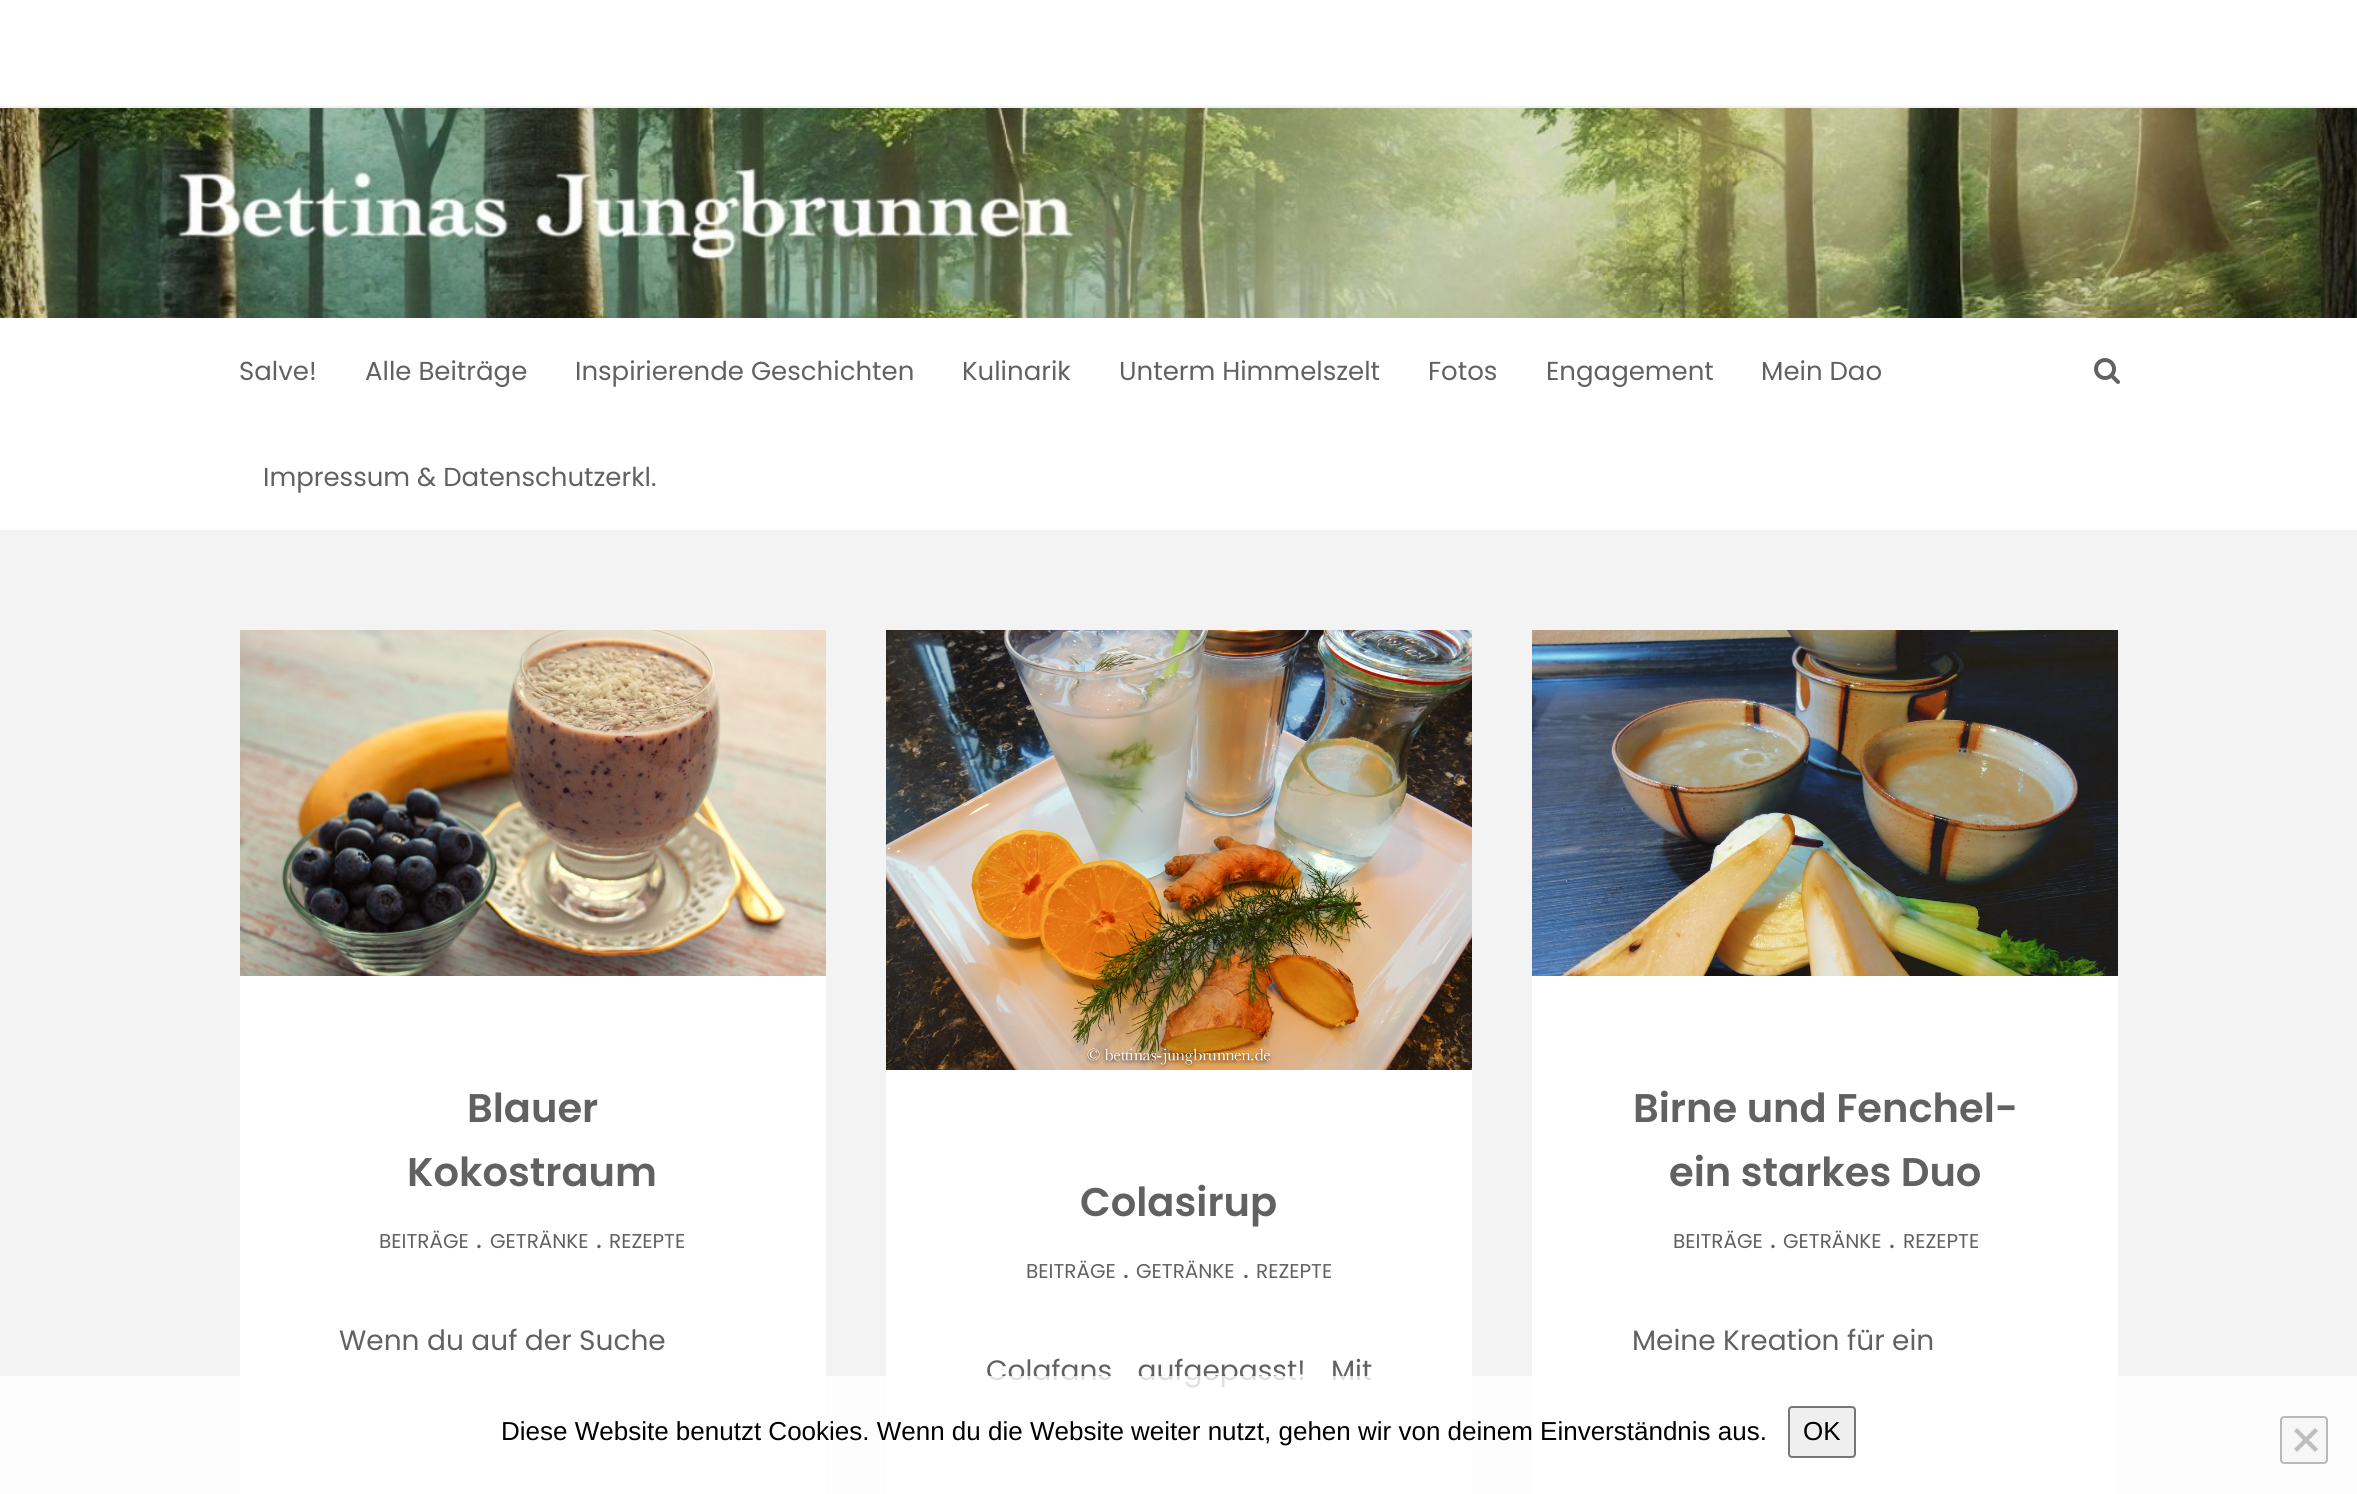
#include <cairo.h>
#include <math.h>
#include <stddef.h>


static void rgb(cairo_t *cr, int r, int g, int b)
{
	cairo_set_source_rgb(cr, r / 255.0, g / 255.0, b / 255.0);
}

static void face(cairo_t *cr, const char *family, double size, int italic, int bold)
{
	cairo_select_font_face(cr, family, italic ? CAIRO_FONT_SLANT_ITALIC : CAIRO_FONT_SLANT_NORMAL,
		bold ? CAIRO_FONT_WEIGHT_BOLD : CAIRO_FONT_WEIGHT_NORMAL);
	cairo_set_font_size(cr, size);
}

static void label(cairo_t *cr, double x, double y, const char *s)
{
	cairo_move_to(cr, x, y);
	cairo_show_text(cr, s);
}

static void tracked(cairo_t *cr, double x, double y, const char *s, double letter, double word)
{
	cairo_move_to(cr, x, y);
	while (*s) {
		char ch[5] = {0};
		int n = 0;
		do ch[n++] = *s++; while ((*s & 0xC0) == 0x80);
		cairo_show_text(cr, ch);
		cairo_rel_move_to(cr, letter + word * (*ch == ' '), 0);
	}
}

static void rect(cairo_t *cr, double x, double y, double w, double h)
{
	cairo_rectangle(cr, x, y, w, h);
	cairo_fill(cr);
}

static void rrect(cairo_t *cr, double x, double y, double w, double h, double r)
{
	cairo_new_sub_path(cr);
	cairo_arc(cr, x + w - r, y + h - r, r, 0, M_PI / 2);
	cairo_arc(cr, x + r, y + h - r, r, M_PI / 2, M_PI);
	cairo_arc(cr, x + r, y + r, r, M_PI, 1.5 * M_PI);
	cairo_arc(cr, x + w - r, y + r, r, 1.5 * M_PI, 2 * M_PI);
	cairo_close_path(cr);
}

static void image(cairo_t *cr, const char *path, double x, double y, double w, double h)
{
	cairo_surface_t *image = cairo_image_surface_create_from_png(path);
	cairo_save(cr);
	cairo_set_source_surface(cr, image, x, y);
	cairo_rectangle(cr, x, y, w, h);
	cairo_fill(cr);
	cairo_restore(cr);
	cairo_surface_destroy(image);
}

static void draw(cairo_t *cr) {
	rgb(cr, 243, 243, 243);
	cairo_paint(cr);
	rgb(cr, 255, 255, 255);
	rect(cr, 0, 0, 2357, 530);
	rgb(cr, 241, 241, 241);
	rect(cr, 0, 106, 2357, 2);
	image(cr, "image0.png", 0, 108, 2357, 210);
	face(cr, "Poppins", 26, 0, 0);
	rgb(cr, 97, 97, 97);
	label(cr, 239, 380, "Salve!");
	label(cr, 365, 380, "Alle Beiträge");
	label(cr, 575, 380, "Inspirierende Geschichten");
	label(cr, 962, 380, "Kulinarik");
	label(cr, 1119, 380, "Unterm Himmelszelt");
	label(cr, 1428, 380, "Fotos");
	label(cr, 1546, 380, "Engagement");
	label(cr, 1761, 380, "Mein Dao");
	label(cr, 263, 486, "Impressum & Datenschutzerkl.");
	image(cr, "image1.png", 2094, 358, 26, 26);
	image(cr, "image2.png", 240, 630, 586, 346);
	rgb(cr, 255, 255, 255);
	rect(cr, 240, 976, 586, 518);
	face(cr, "Poppins SemiBold", 40, 0, 0);
	rgb(cr, 97, 97, 97);
	label(cr, 467, 1122, "Blauer");
	label(cr, 407, 1186, "Kokostraum");
	face(cr, "Poppins", 20, 0, 0);
	label(cr, 379, 1248, "BEITRÄGE");
	face(cr, "Poppins", 28, 0, 0);
	label(cr, 476, 1248, ".");
	face(cr, "Poppins", 20, 0, 0);
	label(cr, 490, 1248, "GETRÄNKE");
	face(cr, "Poppins", 28, 0, 0);
	label(cr, 596, 1248, ".");
	face(cr, "Poppins", 20, 0, 0);
	label(cr, 609, 1248, "REZEPTE");
	face(cr, "Poppins", 28, 0, 0);
	label(cr, 339, 1350, "Wenn du auf der Suche");
	image(cr, "image3.png", 886, 630, 586, 440);
	rgb(cr, 255, 255, 255);
	rect(cr, 886, 1070, 586, 424);
	face(cr, "Poppins SemiBold", 40, 0, 0);
	rgb(cr, 97, 97, 97);
	label(cr, 1080, 1216, "Colasirup");
	face(cr, "Poppins", 20, 0, 0);
	label(cr, 1026, 1278, "BEITRÄGE");
	face(cr, "Poppins", 28, 0, 0);
	label(cr, 1123, 1278, ".");
	face(cr, "Poppins", 20, 0, 0);
	label(cr, 1136, 1278, "GETRÄNKE");
	face(cr, "Poppins", 28, 0, 0);
	label(cr, 1243, 1278, ".");
	face(cr, "Poppins", 20, 0, 0);
	label(cr, 1256, 1278, "REZEPTE");
	face(cr, "Poppins", 28, 0, 0);
	tracked(cr, 986, 1380, "Colafans aufgepasst! Mit", 0, 18);
	image(cr, "image4.png", 1532, 630, 586, 346);
	rgb(cr, 255, 255, 255);
	rect(cr, 1532, 976, 586, 518);
	face(cr, "Poppins SemiBold", 40, 0, 0);
	rgb(cr, 97, 97, 97);
	label(cr, 1633, 1122, "Birne und Fenchel-");
	label(cr, 1669, 1186, "ein starkes Duo");
	face(cr, "Poppins", 20, 0, 0);
	label(cr, 1673, 1248, "BEITRÄGE");
	face(cr, "Poppins", 28, 0, 0);
	label(cr, 1770, 1248, ".");
	face(cr, "Poppins", 20, 0, 0);
	label(cr, 1783, 1248, "GETRÄNKE");
	face(cr, "Poppins", 28, 0, 0);
	label(cr, 1889, 1248, ".");
	face(cr, "Poppins", 20, 0, 0);
	label(cr, 1903, 1248, "REZEPTE");
	face(cr, "Poppins", 28, 0, 0);
	label(cr, 1632, 1350, "Meine Kreation für ein");
	cairo_set_source_rgba(cr, 1, 1, 1, 0.8);
	rect(cr, 0, 1376, 2357, 118);
	face(cr, "Liberation Sans", 26, 0, 0);
	rgb(cr, 0, 0, 0);
	label(cr, 501, 1440, "Diese Website benutzt Cookies. Wenn du die Website weiter nutzt, gehen wir von deinem Einverständnis aus.");
	rgb(cr, 239, 239, 239);
	rrect(cr, 1789, 1407, 66, 50, 3);
	cairo_fill_preserve(cr);
	rgb(cr, 118, 118, 118);
	cairo_stroke(cr);
	rgb(cr, 0, 0, 0);
	label(cr, 1803, 1440, "OK");
	rgb(cr, 246, 246, 246);
	rrect(cr, 2281, 1417, 46, 46, 3);
	cairo_fill_preserve(cr);
	rgb(cr, 185, 185, 185);
	cairo_stroke(cr);
	rgb(cr, 190, 190, 190);
	cairo_new_path(cr);
	cairo_move_to(cr, 2315, 1428);
	cairo_line_to(cr, 2318, 1431);
	cairo_line_to(cr, 2297, 1452);
	cairo_line_to(cr, 2294, 1449);
	cairo_close_path(cr);
	cairo_fill(cr);
	cairo_new_path(cr);
	cairo_move_to(cr, 2294, 1431);
	cairo_line_to(cr, 2297, 1428);
	cairo_line_to(cr, 2318, 1449);
	cairo_line_to(cr, 2315, 1452);
	cairo_close_path(cr);
	cairo_fill(cr);
}

int main(void) {
	cairo_surface_t *surface = cairo_image_surface_create(CAIRO_FORMAT_RGB24, 2357, 1494);
	cairo_t *cr = cairo_create(surface);
	cairo_font_options_t *options = cairo_font_options_create();
	cairo_font_options_set_hint_metrics(options, CAIRO_HINT_METRICS_OFF);
	cairo_font_options_set_hint_style(options, CAIRO_HINT_STYLE_NONE);
	cairo_set_font_options(cr, options);
	cairo_set_miter_limit(cr, 4);
	draw(cr);
	cairo_surface_write_to_png(surface, "render.png");
	cairo_font_options_destroy(options);
	cairo_destroy(cr);
	cairo_surface_destroy(surface);
	return 0;
}
